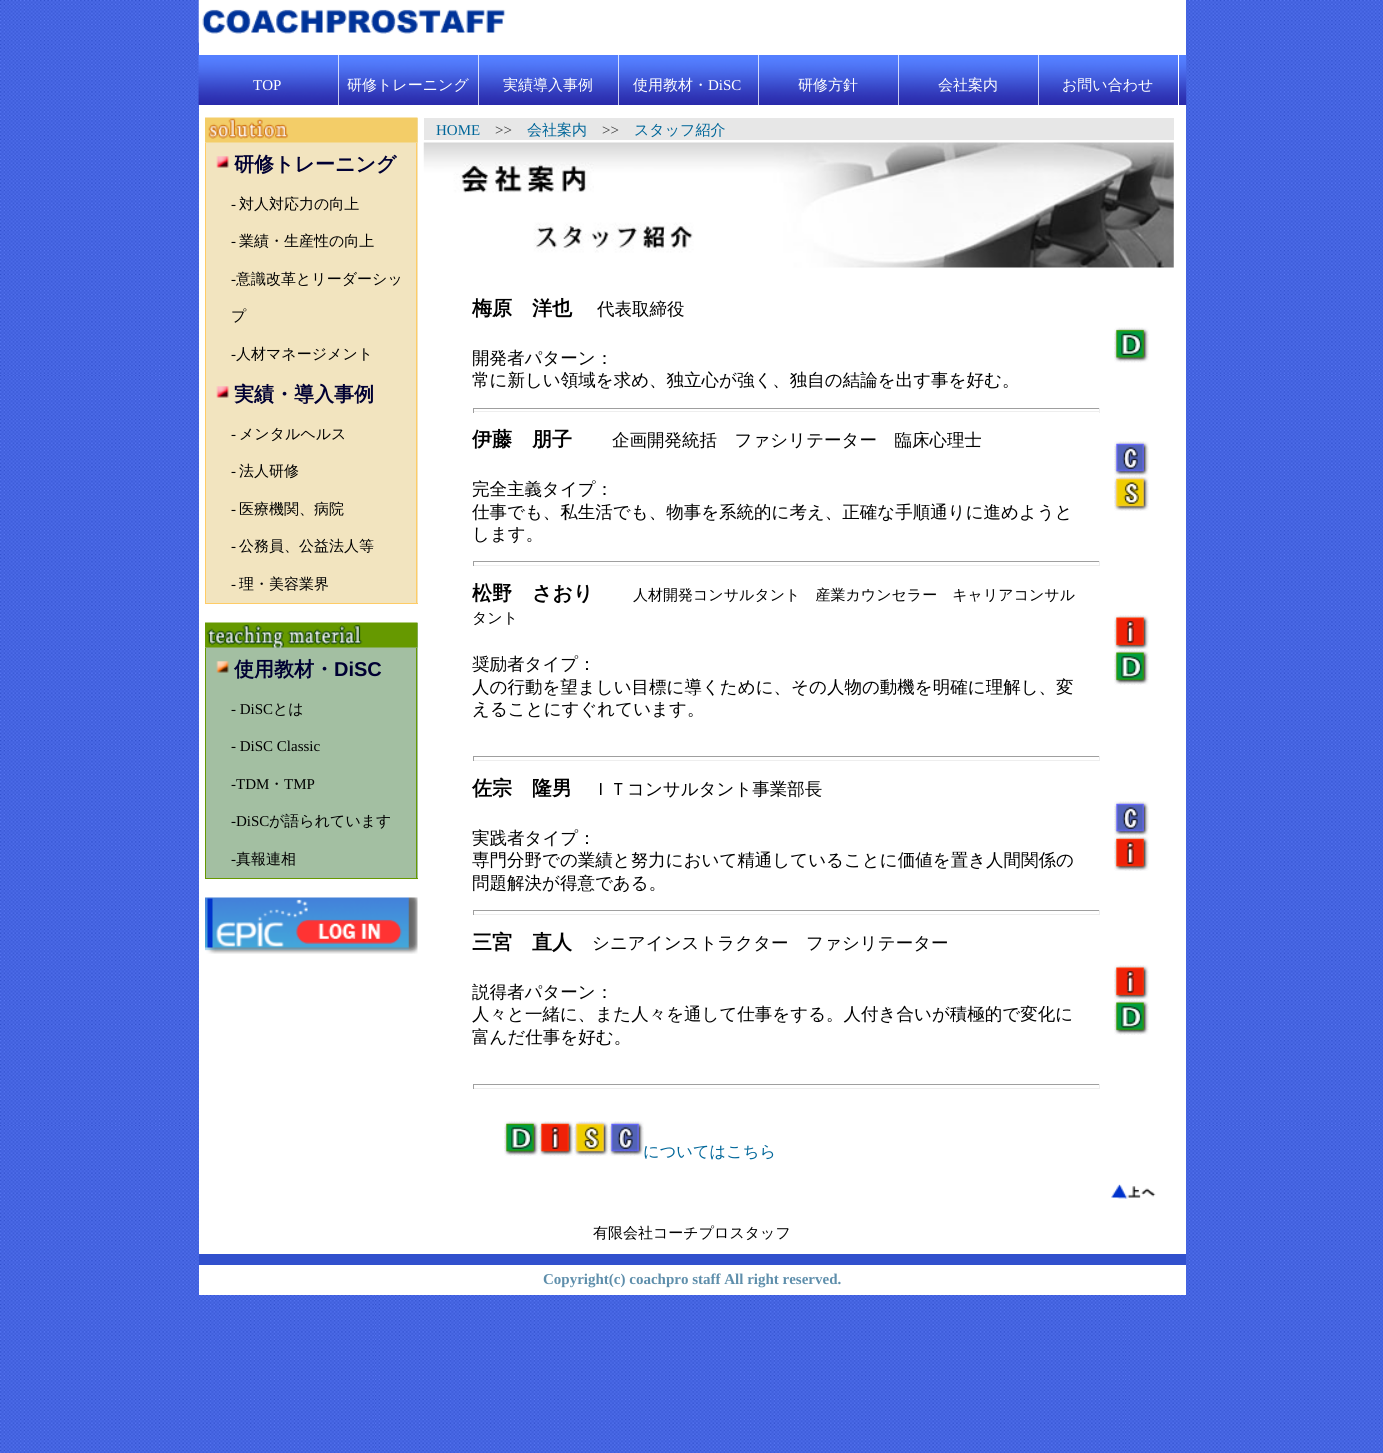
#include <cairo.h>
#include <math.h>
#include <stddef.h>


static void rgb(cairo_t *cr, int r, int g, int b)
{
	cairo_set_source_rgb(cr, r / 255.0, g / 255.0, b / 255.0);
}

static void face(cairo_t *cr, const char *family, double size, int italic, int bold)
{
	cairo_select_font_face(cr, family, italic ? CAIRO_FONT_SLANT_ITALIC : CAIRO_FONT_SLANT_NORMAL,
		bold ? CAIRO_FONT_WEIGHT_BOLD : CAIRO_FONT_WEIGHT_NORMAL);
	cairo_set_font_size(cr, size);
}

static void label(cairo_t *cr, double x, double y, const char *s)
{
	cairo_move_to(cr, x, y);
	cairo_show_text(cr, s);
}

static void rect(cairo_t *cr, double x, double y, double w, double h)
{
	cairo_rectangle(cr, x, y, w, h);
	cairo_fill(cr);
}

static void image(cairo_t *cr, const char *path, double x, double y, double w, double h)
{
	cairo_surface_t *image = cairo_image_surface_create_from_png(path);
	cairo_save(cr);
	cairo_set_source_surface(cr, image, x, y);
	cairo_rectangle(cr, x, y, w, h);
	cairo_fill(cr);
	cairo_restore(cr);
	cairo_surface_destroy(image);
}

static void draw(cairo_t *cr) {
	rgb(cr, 255, 255, 255);
	cairo_paint(cr);
	image(cr, "image0.png", 0, 0, 1383, 1453);
	rgb(cr, 255, 255, 255);
	rect(cr, 199, 0, 987, 1295);
	image(cr, "image1.png", 198, 0, 308, 43);
	image(cr, "image2.png", 198, 55, 989, 50);
	image(cr, "image3.png", 198, 55, 140, 50);
	rect(cr, 338, 55, 1, 50);
	face(cr, "Liberation Serif", 15, 0, 0);
	label(cr, 253, 90, "TOP");
	image(cr, "image4.png", 338, 55, 140, 50);
	rect(cr, 478, 55, 1, 50);
	face(cr, "WenQuanYi Zen Hei Medium", 15, 0, 0);
	label(cr, 347, 90, "研修トレーニング");
	image(cr, "image5.png", 478, 55, 140, 50);
	rect(cr, 618, 55, 1, 50);
	label(cr, 503, 90, "実績導入事例");
	image(cr, "image6.png", 618, 55, 140, 50);
	rect(cr, 758, 55, 1, 50);
	label(cr, 633, 90, "使用教材・");
	face(cr, "Liberation Serif", 15, 0, 0);
	label(cr, 708, 90, "DiSC");
	image(cr, "image7.png", 758, 55, 140, 50);
	rect(cr, 898, 55, 1, 50);
	face(cr, "WenQuanYi Zen Hei Medium", 15, 0, 0);
	label(cr, 798, 90, "研修方針");
	image(cr, "image8.png", 898, 55, 140, 50);
	rect(cr, 1038, 55, 1, 50);
	label(cr, 938, 90, "会社案内");
	image(cr, "image9.png", 1038, 55, 140, 50);
	rect(cr, 1178, 55, 1, 50);
	label(cr, 1062, 90, "お問い合わせ");
	rgb(cr, 231, 231, 231);
	rect(cr, 424, 118, 750, 22);
	face(cr, "Liberation Serif", 15, 0, 0);
	rgb(cr, 0, 102, 153);
	label(cr, 436, 135, "HOME");
	rgb(cr, 51, 51, 51);
	label(cr, 495, 135, ">>");
	face(cr, "WenQuanYi Zen Hei Medium", 15, 0, 0);
	rgb(cr, 0, 102, 153);
	label(cr, 527, 135, "会社案内");
	face(cr, "Liberation Serif", 15, 0, 0);
	rgb(cr, 51, 51, 51);
	label(cr, 602, 135, ">>");
	face(cr, "WenQuanYi Zen Hei Medium", 15, 0, 0);
	rgb(cr, 0, 102, 153);
	label(cr, 634, 135, "スタッフ紹介");
	rgb(cr, 242, 228, 191);
	rect(cr, 205, 118, 213, 485);
	rgb(cr, 255, 204, 102);
	rect(cr, 205, 603, 213, 1);
	image(cr, "image10.png", 205, 117, 213, 26);
	rect(cr, 416, 143, 1, 460);
	rect(cr, 205, 143, 1, 460);
	image(cr, "image11.png", 216, 156, 13, 12);
	face(cr, "WenQuanYi Zen Hei", 20, 0, 1);
	rgb(cr, 0, 0, 51);
	label(cr, 234, 171, "研修トレーニング");
	face(cr, "Liberation Serif", 15, 0, 0);
	rgb(cr, 0, 0, 0);
	label(cr, 231, 209, "-");
	face(cr, "WenQuanYi Zen Hei Medium", 15, 0, 0);
	label(cr, 239, 209, "対人対応力の向上");
	face(cr, "Liberation Serif", 15, 0, 0);
	label(cr, 231, 246, "-");
	face(cr, "WenQuanYi Zen Hei Medium", 15, 0, 0);
	label(cr, 239, 246, "業績・生産性の向上");
	face(cr, "Liberation Serif", 15, 0, 0);
	label(cr, 231, 284, "-");
	face(cr, "WenQuanYi Zen Hei Medium", 15, 0, 0);
	label(cr, 236, 284, "意識改革とリーダーシッ");
	label(cr, 231, 321, "プ");
	face(cr, "Liberation Serif", 15, 0, 0);
	label(cr, 231, 359, "-");
	face(cr, "WenQuanYi Zen Hei Medium", 15, 0, 0);
	label(cr, 236, 359, "人材マネージメント");
	image(cr, "image11.png", 216, 386, 13, 12);
	face(cr, "WenQuanYi Zen Hei", 20, 0, 1);
	rgb(cr, 0, 0, 51);
	label(cr, 234, 401, "実績・導入事例");
	face(cr, "Liberation Serif", 15, 0, 0);
	rgb(cr, 0, 0, 0);
	label(cr, 231, 439, "-");
	face(cr, "WenQuanYi Zen Hei Medium", 15, 0, 0);
	label(cr, 239, 439, "メンタルヘルス");
	face(cr, "Liberation Serif", 15, 0, 0);
	label(cr, 231, 476, "-");
	face(cr, "WenQuanYi Zen Hei Medium", 15, 0, 0);
	label(cr, 239, 476, "法人研修");
	face(cr, "Liberation Serif", 15, 0, 0);
	label(cr, 231, 514, "-");
	face(cr, "WenQuanYi Zen Hei Medium", 15, 0, 0);
	label(cr, 239, 514, "医療機関、病院");
	face(cr, "Liberation Serif", 15, 0, 0);
	label(cr, 231, 551, "-");
	face(cr, "WenQuanYi Zen Hei Medium", 15, 0, 0);
	label(cr, 239, 551, "公務員、公益法人等");
	face(cr, "Liberation Serif", 15, 0, 0);
	label(cr, 231, 589, "-");
	face(cr, "WenQuanYi Zen Hei Medium", 15, 0, 0);
	label(cr, 239, 589, "理・美容業界");
	rgb(cr, 163, 191, 162);
	rect(cr, 205, 623, 213, 255);
	rgb(cr, 102, 153, 0);
	rect(cr, 205, 878, 213, 1);
	image(cr, "image12.png", 205, 622, 213, 26);
	rect(cr, 416, 648, 1, 230);
	rect(cr, 205, 648, 1, 230);
	image(cr, "image13.png", 216, 661, 13, 12);
	face(cr, "WenQuanYi Zen Hei", 20, 0, 1);
	rgb(cr, 0, 0, 51);
	label(cr, 234, 676, "使用教材・");
	face(cr, "Liberation Sans", 20, 0, 1);
	label(cr, 334, 676, "DiSC");
	face(cr, "Liberation Serif", 15, 0, 0);
	rgb(cr, 0, 0, 0);
	label(cr, 231, 714, "- DiSC");
	face(cr, "WenQuanYi Zen Hei Medium", 15, 0, 0);
	label(cr, 273, 714, "とは");
	face(cr, "Liberation Serif", 15, 0, 0);
	label(cr, 231, 751, "- DiSC Classic");
	label(cr, 231, 789, "-TDM");
	face(cr, "WenQuanYi Zen Hei Medium", 15, 0, 0);
	label(cr, 269, 789, "・");
	face(cr, "Liberation Serif", 15, 0, 0);
	label(cr, 284, 789, "TMP");
	label(cr, 231, 826, "-DiSC");
	face(cr, "WenQuanYi Zen Hei Medium", 15, 0, 0);
	label(cr, 269, 826, "が語られています");
	face(cr, "Liberation Serif", 15, 0, 0);
	label(cr, 231, 864, "-");
	face(cr, "WenQuanYi Zen Hei Medium", 15, 0, 0);
	label(cr, 236, 864, "真報連相");
	image(cr, "image14.png", 205, 897, 213, 57);
	image(cr, "image15.png", 423, 142, 751, 126);
	face(cr, "WenQuanYi Zen Hei", 20, 0, 1);
	label(cr, 472, 315, "梅原　洋也");
	face(cr, "WenQuanYi Zen Hei Medium", 17.5, 0, 0);
	label(cr, 597, 315, "代表取締役");
	image(cr, "image16.png", 1114, 327, 35, 36);
	label(cr, 472, 364, "開発者パターン：");
	label(cr, 472, 386, "常に新しい領域を求め、独立心が強く、独自の結論を出す事を好む。");
	rgb(cr, 159, 159, 159);
	rect(cr, 473, 408, 627, 1);
	rgb(cr, 238, 238, 238);
	rect(cr, 1099, 408, 1, 5);
	rect(cr, 473, 411, 627, 1);
	rgb(cr, 159, 159, 159);
	rect(cr, 473, 408, 1, 5);
	face(cr, "WenQuanYi Zen Hei", 20, 0, 1);
	rgb(cr, 0, 0, 0);
	label(cr, 472, 446, "伊藤　朋子");
	face(cr, "WenQuanYi Zen Hei Medium", 17.5, 0, 0);
	label(cr, 612, 446, "企画開発統括　ファシリテーター　臨床心理士");
	image(cr, "image17.png", 1114, 441, 35, 35);
	image(cr, "image18.png", 1114, 476, 35, 35);
	label(cr, 472, 495, "完全主義タイプ：");
	label(cr, 472, 518, "仕事でも、私生活でも、物事を系統的に考え、正確な手順通りに進めようと");
	label(cr, 472, 540, "します。");
	rgb(cr, 159, 159, 159);
	rect(cr, 473, 561, 627, 1);
	rgb(cr, 238, 238, 238);
	rect(cr, 1099, 561, 1, 5);
	rect(cr, 473, 565, 627, 1);
	rgb(cr, 159, 159, 159);
	rect(cr, 473, 561, 1, 5);
	face(cr, "WenQuanYi Zen Hei", 20, 0, 1);
	rgb(cr, 0, 0, 0);
	label(cr, 472, 600, "松野　さおり");
	face(cr, "WenQuanYi Zen Hei Medium", 15, 0, 0);
	label(cr, 633, 600, "人材開発コンサルタント　産業カウンセラー　キャリアコンサル");
	label(cr, 472, 623, "タント");
	image(cr, "image19.png", 1114, 615, 35, 35);
	image(cr, "image20.png", 1114, 650, 35, 35);
	face(cr, "WenQuanYi Zen Hei Medium", 17.5, 0, 0);
	label(cr, 472, 670, "奨励者タイプ：");
	label(cr, 472, 693, "人の行動を望ましい目標に導くために、その人物の動機を明確に理解し、変");
	label(cr, 472, 715, "えることにすぐれています。");
	rgb(cr, 159, 159, 159);
	rect(cr, 473, 756, 627, 1);
	rgb(cr, 238, 238, 238);
	rect(cr, 1099, 756, 1, 5);
	rect(cr, 473, 760, 627, 1);
	rgb(cr, 159, 159, 159);
	rect(cr, 473, 756, 1, 5);
	face(cr, "WenQuanYi Zen Hei", 20, 0, 1);
	rgb(cr, 0, 0, 0);
	label(cr, 472, 795, "佐宗　隆男");
	face(cr, "WenQuanYi Zen Hei Medium", 17.5, 0, 0);
	label(cr, 592, 795, "ＩＴコンサルタント事業部長");
	image(cr, "image17.png", 1114, 801, 35, 35);
	image(cr, "image21.png", 1114, 836, 35, 35);
	label(cr, 472, 844, "実践者タイプ：");
	label(cr, 472, 866, "専門分野での業績と努力において精通していることに価値を置き人間関係の");
	label(cr, 472, 889, "問題解決が得意である。");
	rgb(cr, 159, 159, 159);
	rect(cr, 473, 910, 627, 1);
	rgb(cr, 238, 238, 238);
	rect(cr, 1099, 910, 1, 5);
	rect(cr, 473, 914, 627, 1);
	rgb(cr, 159, 159, 159);
	rect(cr, 473, 910, 1, 5);
	face(cr, "WenQuanYi Zen Hei", 20, 0, 1);
	rgb(cr, 0, 0, 0);
	label(cr, 472, 949, "三宮　直人");
	face(cr, "WenQuanYi Zen Hei Medium", 17.5, 0, 0);
	label(cr, 592, 949, "シニアインストラクター　ファシリテーター");
	image(cr, "image19.png", 1114, 965, 35, 35);
	image(cr, "image20.png", 1114, 1000, 35, 35);
	label(cr, 472, 998, "説得者パターン：");
	label(cr, 472, 1020, "人々と一緒に、また人々を通して仕事をする。人付き合いが積極的で変化に");
	label(cr, 472, 1043, "富んだ仕事を好む。");
	rgb(cr, 159, 159, 159);
	rect(cr, 473, 1084, 627, 1);
	rgb(cr, 238, 238, 238);
	rect(cr, 1099, 1084, 1, 5);
	rect(cr, 473, 1088, 627, 1);
	rgb(cr, 159, 159, 159);
	rect(cr, 473, 1084, 1, 5);
	image(cr, "image22.png", 504, 1121, 35, 35);
	image(cr, "image23.png", 539, 1121, 35, 35);
	image(cr, "image18.png", 574, 1121, 35, 35);
	image(cr, "image24.png", 609, 1121, 35, 35);
	face(cr, "WenQuanYi Zen Hei Medium", 16.25, 0, 0);
	rgb(cr, 0, 102, 153);
	label(cr, 643, 1157, "についてはこちら");
	image(cr, "image25.png", 1111, 1184, 45, 15);
	face(cr, "WenQuanYi Zen Hei Medium", 15, 0, 0);
	rgb(cr, 0, 0, 0);
	label(cr, 593, 1238, "有限会社コーチプロスタッフ");
	rgb(cr, 49, 80, 205);
	rect(cr, 199, 1254, 987, 11);
	face(cr, "Liberation Serif", 15, 0, 1);
	rgb(cr, 94, 142, 171);
	label(cr, 543, 1284, "Copyright(c) coachpro staff All right reserved.");
}

int main(void) {
	cairo_surface_t *surface = cairo_image_surface_create(CAIRO_FORMAT_RGB24, 1383, 1453);
	cairo_t *cr = cairo_create(surface);
	cairo_font_options_t *options = cairo_font_options_create();
	cairo_font_options_set_hint_metrics(options, CAIRO_HINT_METRICS_OFF);
	cairo_font_options_set_hint_style(options, CAIRO_HINT_STYLE_NONE);
	cairo_set_font_options(cr, options);
	cairo_set_miter_limit(cr, 4);
	draw(cr);
	cairo_surface_write_to_png(surface, "render.png");
	cairo_font_options_destroy(options);
	cairo_destroy(cr);
	cairo_surface_destroy(surface);
	return 0;
}
